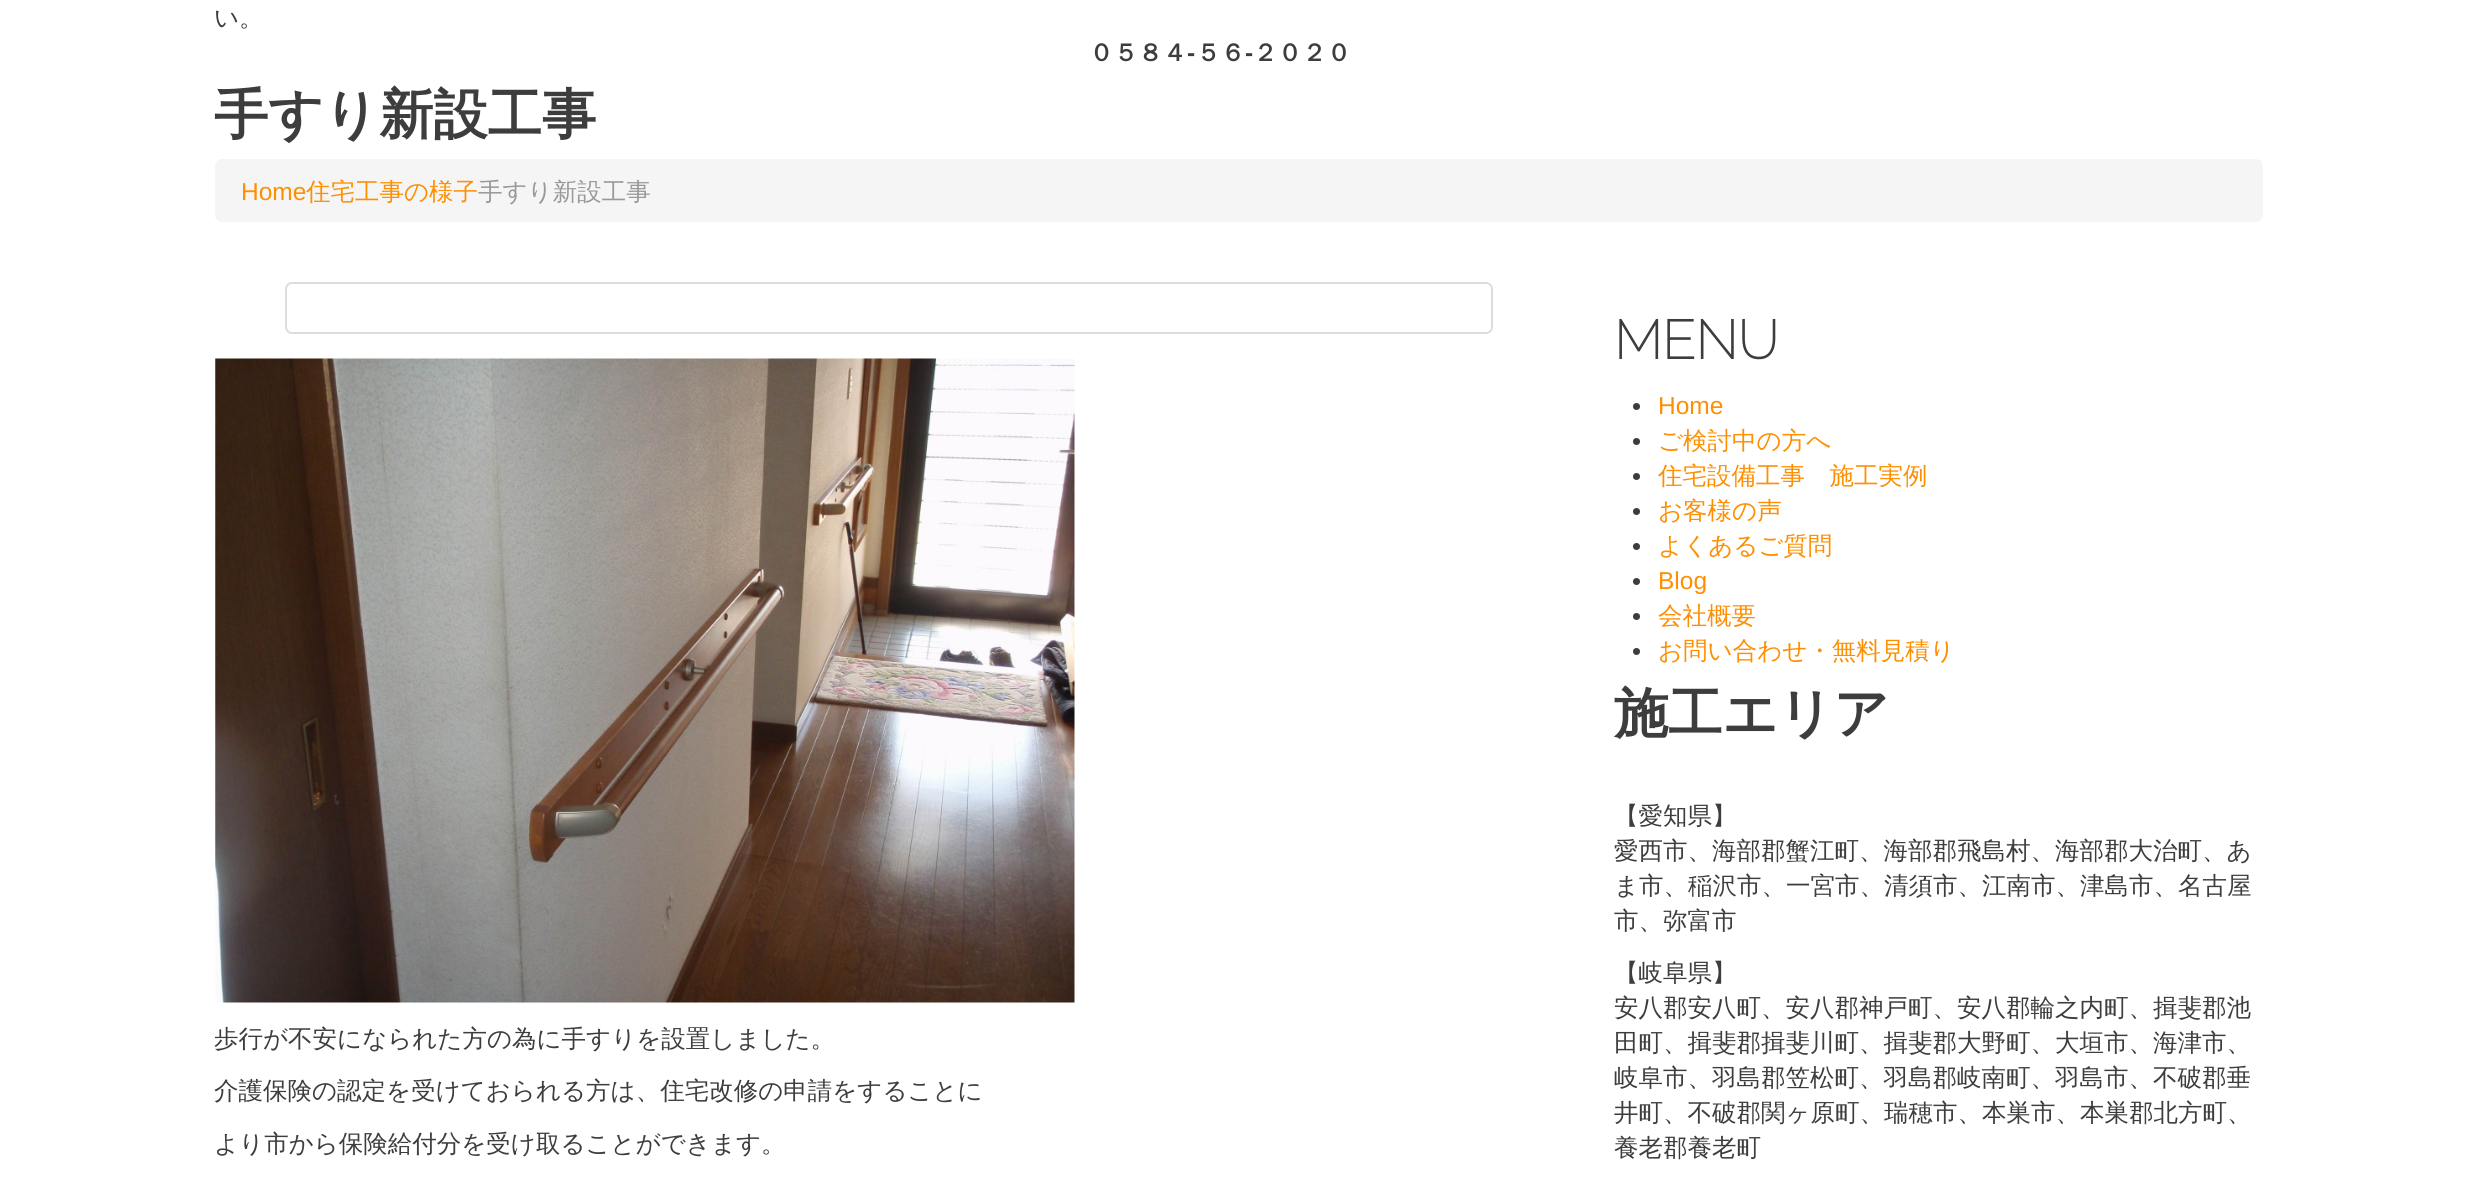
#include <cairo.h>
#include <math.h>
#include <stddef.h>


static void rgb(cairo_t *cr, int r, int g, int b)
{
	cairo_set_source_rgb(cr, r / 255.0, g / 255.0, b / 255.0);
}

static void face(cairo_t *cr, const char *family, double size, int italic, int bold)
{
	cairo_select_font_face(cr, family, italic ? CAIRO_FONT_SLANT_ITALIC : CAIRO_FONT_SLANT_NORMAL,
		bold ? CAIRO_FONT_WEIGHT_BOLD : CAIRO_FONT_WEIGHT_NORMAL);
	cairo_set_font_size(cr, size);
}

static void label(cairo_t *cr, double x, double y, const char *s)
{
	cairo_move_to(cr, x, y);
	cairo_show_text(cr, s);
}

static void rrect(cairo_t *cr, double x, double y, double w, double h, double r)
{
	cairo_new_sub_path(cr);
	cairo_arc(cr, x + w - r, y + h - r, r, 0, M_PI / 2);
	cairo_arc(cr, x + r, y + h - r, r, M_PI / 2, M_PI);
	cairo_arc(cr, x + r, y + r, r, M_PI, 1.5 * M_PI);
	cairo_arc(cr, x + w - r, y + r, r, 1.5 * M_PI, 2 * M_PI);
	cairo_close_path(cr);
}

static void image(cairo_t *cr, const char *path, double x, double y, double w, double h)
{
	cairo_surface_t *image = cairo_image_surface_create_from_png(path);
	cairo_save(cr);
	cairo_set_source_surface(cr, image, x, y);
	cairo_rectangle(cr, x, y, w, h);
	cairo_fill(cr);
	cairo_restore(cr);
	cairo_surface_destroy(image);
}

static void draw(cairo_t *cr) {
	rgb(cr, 255, 255, 255);
	cairo_paint(cr);
	face(cr, "WenQuanYi Zen Hei Medium", 24.5, 0, 0);
	rgb(cr, 61, 61, 61);
	label(cr, 214, 26, "い。");
	face(cr, "WenQuanYi Zen Hei", 24.5, 0, 1);
	label(cr, 1089, 61, "０５８４");
	face(cr, "Liberation Sans", 24.5, 0, 1);
	label(cr, 1187, 61, "-");
	face(cr, "WenQuanYi Zen Hei", 24.5, 0, 1);
	label(cr, 1196, 61, "５６");
	face(cr, "Liberation Sans", 24.5, 0, 1);
	label(cr, 1245, 61, "-");
	face(cr, "WenQuanYi Zen Hei", 24.5, 0, 1);
	label(cr, 1253, 61, "２０２０");
	face(cr, "WenQuanYi Zen Hei", 54.25, 0, 1);
	label(cr, 214, 133, "手すり新設工事");
	rgb(cr, 245, 245, 245);
	rrect(cr, 215, 159, 2048, 63, 7);
	cairo_fill(cr);
	face(cr, "Liberation Sans", 24.5, 0, 0);
	rgb(cr, 254, 143, 1);
	label(cr, 241, 200, "Home");
	face(cr, "WenQuanYi Zen Hei Medium", 24.5, 0, 0);
	label(cr, 306, 200, "住宅工事の様子");
	rgb(cr, 153, 153, 153);
	label(cr, 478, 200, "手すり新設工事");
	rrect(cr, 286, 283, 1206, 50, 6);
	rgb(cr, 221, 221, 221);
	cairo_stroke(cr);
	image(cr, "image0.png", 215, 358, 860, 645);
	rgb(cr, 61, 61, 61);
	label(cr, 214, 1047, "歩行が不安になられた方の為に手すりを設置しました。");
	label(cr, 214, 1099, "介護保険の認定を受けておられる方は、住宅改修の申請をすることに");
	label(cr, 214, 1152, "より市から保険給付分を受け取ることができます。");
	face(cr, "Raleway", 54.25, 0, 1);
	label(cr, 1614, 359, "MENU");
	cairo_new_path(cr);
	cairo_arc(cr, 1636.5, 406.5, 3.5, 0, 2 * M_PI);
	cairo_fill(cr);
	face(cr, "Liberation Sans", 24.5, 0, 0);
	rgb(cr, 254, 143, 1);
	label(cr, 1658, 414, "Home");
	rgb(cr, 61, 61, 61);
	cairo_new_path(cr);
	cairo_arc(cr, 1636.5, 441.5, 3.5, 0, 2 * M_PI);
	cairo_fill(cr);
	face(cr, "WenQuanYi Zen Hei Medium", 24.5, 0, 0);
	rgb(cr, 254, 143, 1);
	label(cr, 1658, 449, "ご検討中の方へ");
	rgb(cr, 61, 61, 61);
	cairo_new_path(cr);
	cairo_arc(cr, 1636.5, 476.5, 3.5, 0, 2 * M_PI);
	cairo_fill(cr);
	rgb(cr, 254, 143, 1);
	label(cr, 1658, 484, "住宅設備工事　施工実例");
	rgb(cr, 61, 61, 61);
	cairo_new_path(cr);
	cairo_arc(cr, 1636.5, 511.5, 3.5, 0, 2 * M_PI);
	cairo_fill(cr);
	rgb(cr, 254, 143, 1);
	label(cr, 1658, 519, "お客様の声");
	rgb(cr, 61, 61, 61);
	cairo_new_path(cr);
	cairo_arc(cr, 1636.5, 546.5, 3.5, 0, 2 * M_PI);
	cairo_fill(cr);
	rgb(cr, 254, 143, 1);
	label(cr, 1658, 554, "よくあるご質問");
	rgb(cr, 61, 61, 61);
	cairo_new_path(cr);
	cairo_arc(cr, 1636.5, 581.5, 3.5, 0, 2 * M_PI);
	cairo_fill(cr);
	face(cr, "Liberation Sans", 24.5, 0, 0);
	rgb(cr, 254, 143, 1);
	label(cr, 1658, 589, "Blog");
	rgb(cr, 61, 61, 61);
	cairo_new_path(cr);
	cairo_arc(cr, 1636.5, 616.5, 3.5, 0, 2 * M_PI);
	cairo_fill(cr);
	face(cr, "WenQuanYi Zen Hei Medium", 24.5, 0, 0);
	rgb(cr, 254, 143, 1);
	label(cr, 1658, 624, "会社概要");
	rgb(cr, 61, 61, 61);
	cairo_new_path(cr);
	cairo_arc(cr, 1636.5, 651.5, 3.5, 0, 2 * M_PI);
	cairo_fill(cr);
	rgb(cr, 254, 143, 1);
	label(cr, 1658, 659, "お問い合わせ・無料見積り");
	face(cr, "WenQuanYi Zen Hei", 54.25, 0, 1);
	rgb(cr, 61, 61, 61);
	label(cr, 1614, 732, "施工エリア");
	face(cr, "WenQuanYi Zen Hei Medium", 24.5, 0, 0);
	label(cr, 1614, 824, "【愛知県】");
	label(cr, 1614, 859, "愛西市、海部郡蟹江町、海部郡飛島村、海部郡大治町、あ");
	label(cr, 1614, 894, "ま市、稲沢市、一宮市、清須市、江南市、津島市、名古屋");
	label(cr, 1614, 929, "市、弥富市");
	label(cr, 1614, 981, "【岐阜県】");
	label(cr, 1614, 1016, "安八郡安八町、安八郡神戸町、安八郡輪之内町、揖斐郡池");
	label(cr, 1614, 1051, "田町、揖斐郡揖斐川町、揖斐郡大野町、大垣市、海津市、");
	label(cr, 1614, 1086, "岐阜市、羽島郡笠松町、羽島郡岐南町、羽島市、不破郡垂");
	label(cr, 1614, 1121, "井町、不破郡関ヶ原町、瑞穂市、本巣市、本巣郡北方町、");
	label(cr, 1614, 1156, "養老郡養老町");
}

int main(void) {
	cairo_surface_t *surface = cairo_image_surface_create(CAIRO_FORMAT_RGB24, 2476, 1198);
	cairo_t *cr = cairo_create(surface);
	cairo_font_options_t *options = cairo_font_options_create();
	cairo_font_options_set_hint_metrics(options, CAIRO_HINT_METRICS_OFF);
	cairo_font_options_set_hint_style(options, CAIRO_HINT_STYLE_NONE);
	cairo_set_font_options(cr, options);
	cairo_set_miter_limit(cr, 4);
	draw(cr);
	cairo_surface_write_to_png(surface, "render.png");
	cairo_font_options_destroy(options);
	cairo_destroy(cr);
	cairo_surface_destroy(surface);
	return 0;
}
